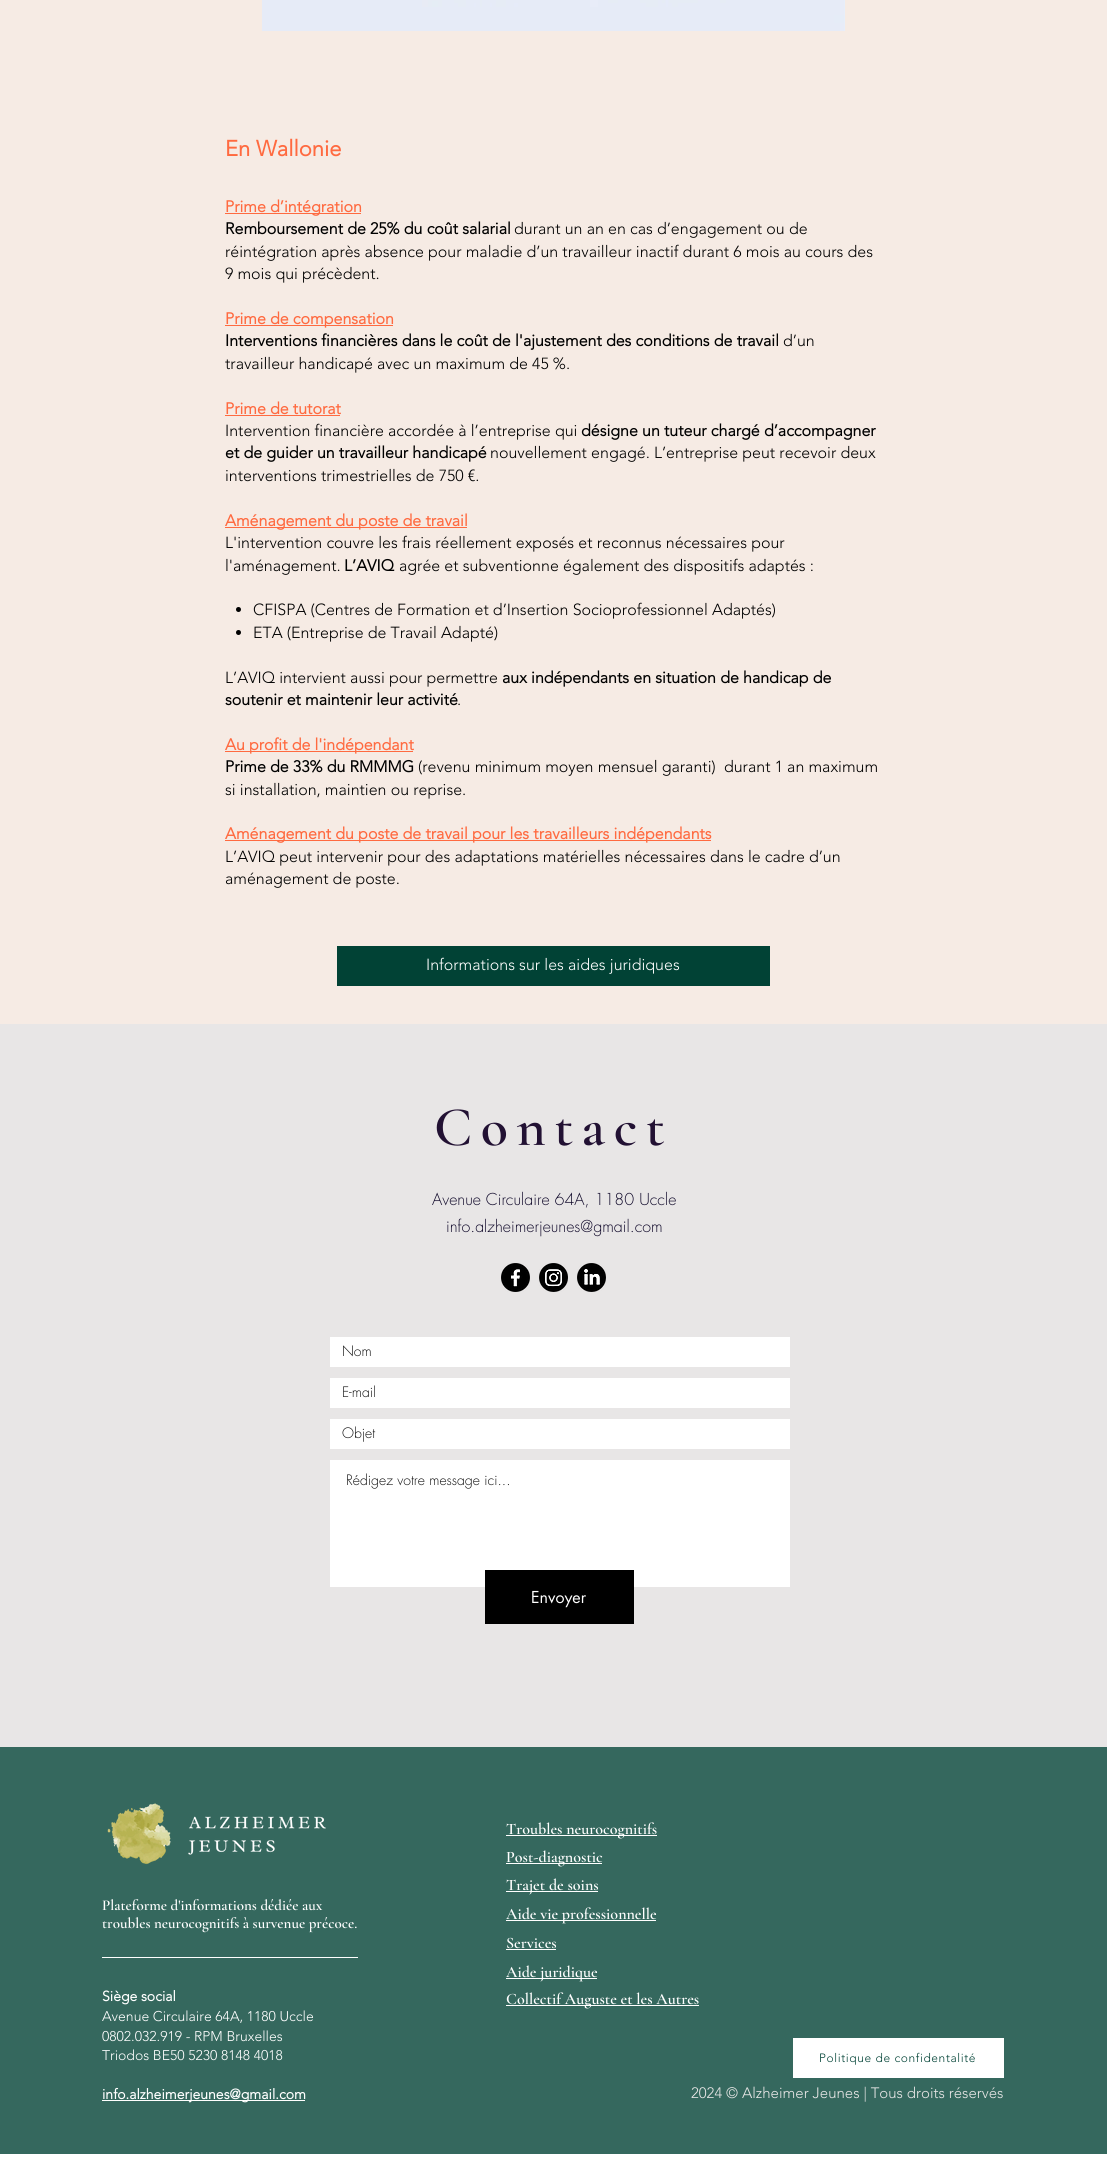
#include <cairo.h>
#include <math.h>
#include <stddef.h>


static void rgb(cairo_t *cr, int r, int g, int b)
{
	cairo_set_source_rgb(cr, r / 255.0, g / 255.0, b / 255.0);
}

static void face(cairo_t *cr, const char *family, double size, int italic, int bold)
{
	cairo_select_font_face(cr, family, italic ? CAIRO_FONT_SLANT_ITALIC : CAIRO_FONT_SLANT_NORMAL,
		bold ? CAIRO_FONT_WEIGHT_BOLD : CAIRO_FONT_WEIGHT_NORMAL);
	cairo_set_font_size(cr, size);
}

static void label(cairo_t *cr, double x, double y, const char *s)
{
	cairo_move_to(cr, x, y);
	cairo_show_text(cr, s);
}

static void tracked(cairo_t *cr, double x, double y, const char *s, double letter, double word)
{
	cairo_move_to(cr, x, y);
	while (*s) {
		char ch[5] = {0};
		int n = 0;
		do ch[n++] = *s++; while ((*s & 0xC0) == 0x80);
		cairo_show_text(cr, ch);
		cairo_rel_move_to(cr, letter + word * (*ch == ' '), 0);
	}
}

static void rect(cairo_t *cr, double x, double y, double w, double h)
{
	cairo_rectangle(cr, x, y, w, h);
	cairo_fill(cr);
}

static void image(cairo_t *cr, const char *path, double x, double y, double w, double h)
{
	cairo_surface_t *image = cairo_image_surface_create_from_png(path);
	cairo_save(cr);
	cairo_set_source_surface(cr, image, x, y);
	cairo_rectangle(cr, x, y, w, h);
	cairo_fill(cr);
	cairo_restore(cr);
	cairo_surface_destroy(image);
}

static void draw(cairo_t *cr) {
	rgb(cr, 255, 255, 255);
	cairo_paint(cr);
	rgb(cr, 246, 235, 228);
	rect(cr, 0, 0, 1107, 1024);
	image(cr, "image0.png", 262, 0, 583, 31);
	face(cr, "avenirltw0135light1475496", 22, 0, 1);
	rgb(cr, 255, 106, 64);
	label(cr, 225, 156, "En Wallonie");
	rect(cr, 225, 213, 136, 1);
	face(cr, "avenirltw0135light1475496", 16, 0, 1);
	label(cr, 225, 212, "Prime d’intégration");
	rgb(cr, 0, 0, 0);
	label(cr, 225, 234, "Remboursement de 25% du coût salarial");
	face(cr, "avenirltw0135light1475496 Light", 16, 0, 0);
	label(cr, 514, 234, "durant un an en cas d’engagement ou de");
	label(cr, 225, 257, "réintégration après absence pour maladie d’un travailleur inactif durant 6 mois au cours des");
	label(cr, 225, 279, "9 mois qui précèdent.");
	rgb(cr, 255, 106, 64);
	rect(cr, 225, 325, 168, 1);
	face(cr, "avenirltw0135light1475496", 16, 0, 1);
	label(cr, 225, 324, "Prime de compensation");
	rgb(cr, 0, 0, 0);
	label(cr, 225, 346, "Interventions financières dans le coût de l'ajustement des conditions de travail");
	face(cr, "avenirltw0135light1475496 Light", 16, 0, 0);
	label(cr, 783, 346, "d’un");
	label(cr, 225, 369, "travailleur handicapé avec un maximum de 45 %.");
	face(cr, "avenirltw0135light1475496", 16, 0, 1);
	rgb(cr, 255, 106, 64);
	label(cr, 225, 414, "Prime de tutorat");
	rect(cr, 225, 415, 115, 1);
	face(cr, "avenirltw0135light1475496 Light", 16, 0, 0);
	rgb(cr, 0, 0, 0);
	label(cr, 225, 436, "Intervention financière accordée à l’entreprise qui");
	face(cr, "avenirltw0135light1475496", 16, 0, 1);
	label(cr, 581, 436, "désigne un tuteur chargé d’accompagner");
	label(cr, 225, 458, "et de guider un travailleur handicapé");
	face(cr, "avenirltw0135light1475496 Light", 16, 0, 0);
	label(cr, 490, 458, "nouvellement engagé. L’entreprise peut recevoir deux");
	label(cr, 225, 481, "interventions trimestrielles de 750 €.");
	rgb(cr, 255, 106, 64);
	rect(cr, 225, 527, 242, 1);
	face(cr, "avenirltw0135light1475496", 16, 0, 1);
	label(cr, 225, 526, "Aménagement du poste de travail");
	face(cr, "avenirltw0135light1475496 Light", 16, 0, 0);
	rgb(cr, 0, 0, 0);
	label(cr, 225, 548, "L'intervention couvre les frais réellement exposés et reconnus nécessaires pour");
	label(cr, 225, 571, "l'aménagement.");
	face(cr, "avenirltw0135light1475496", 16, 0, 1);
	label(cr, 344, 571, "L’AVIQ");
	face(cr, "avenirltw0135light1475496 Light", 16, 0, 0);
	label(cr, 399, 571, "agrée et subventionne également des dispositifs adaptés :");
	cairo_new_path(cr);
	cairo_arc(cr, 238.5, 609.5, 2.5, 0, 2 * M_PI);
	cairo_fill(cr);
	label(cr, 253, 615, "CFISPA (Centres de Formation et d’Insertion Socioprofessionnel Adaptés)");
	cairo_new_path(cr);
	cairo_arc(cr, 238.5, 632.5, 2.5, 0, 2 * M_PI);
	cairo_fill(cr);
	label(cr, 253, 638, "ETA (Entreprise de Travail Adapté)");
	label(cr, 225, 683, "L’AVIQ intervient aussi pour permettre");
	face(cr, "avenirltw0135light1475496", 16, 0, 1);
	label(cr, 502, 683, "aux indépendants en situation de handicap de");
	label(cr, 225, 705, "soutenir et maintenir leur activité");
	face(cr, "avenirltw0135light1475496 Light", 16, 0, 0);
	label(cr, 457, 705, ".");
	rgb(cr, 255, 106, 64);
	rect(cr, 225, 751, 188, 1);
	face(cr, "avenirltw0135light1475496", 16, 0, 1);
	label(cr, 225, 750, "Au profit de l'indépendant");
	rgb(cr, 0, 0, 0);
	label(cr, 225, 772, "Prime de 33% du RMMMG");
	face(cr, "avenirltw0135light1475496 Light", 16, 0, 0);
	label(cr, 418, 772, "(revenu minimum moyen mensuel garanti)  durant 1 an maximum");
	label(cr, 225, 795, "si installation, maintien ou reprise.");
	rgb(cr, 255, 106, 64);
	rect(cr, 225, 840, 486, 1);
	face(cr, "avenirltw0135light1475496", 16, 0, 1);
	label(cr, 225, 839, "Aménagement du poste de travail pour les travailleurs indépendants");
	face(cr, "avenirltw0135light1475496 Light", 16, 0, 0);
	rgb(cr, 0, 0, 0);
	label(cr, 225, 862, "L’AVIQ peut intervenir pour des adaptations matérielles nécessaires dans le cadre d’un");
	label(cr, 225, 884, "aménagement de poste.");
	rgb(cr, 1, 66, 53);
	rect(cr, 337, 946, 433, 40);
	rgb(cr, 255, 255, 255);
	label(cr, 426, 970, "Informations sur les aides juridiques");
	rgb(cr, 232, 230, 230);
	rect(cr, 0, 1024, 1107, 723);
	face(cr, "Cormorant Garamond SemiBold", 56, 0, 0);
	rgb(cr, 34, 17, 51);
	tracked(cr, 434, 1145, "Contact", 8.5, 0);
	face(cr, "futura Light", 16, 0, 0);
	rgb(cr, 17, 10, 43);
	label(cr, 432, 1205, "Avenue Circulaire 64A, 1180 Uccle");
	label(cr, 446, 1232, "info.alzheimerjeunes@gmail.com");
	image(cr, "image1.png", 501, 1263, 29, 29);
	image(cr, "image2.png", 539, 1263, 29, 29);
	image(cr, "image3.png", 577, 1263, 29, 29);
	rgb(cr, 255, 255, 255);
	rect(cr, 330, 1337, 460, 30);
	face(cr, "futura Light", 14, 0, 0);
	rgb(cr, 15, 15, 15);
	label(cr, 342, 1356, "Nom");
	rgb(cr, 255, 255, 255);
	rect(cr, 330, 1378, 460, 30);
	rgb(cr, 15, 15, 15);
	label(cr, 342, 1397, "E-mail");
	rgb(cr, 255, 255, 255);
	rect(cr, 330, 1419, 460, 30);
	rgb(cr, 15, 15, 15);
	label(cr, 342, 1438, "Objet");
	rgb(cr, 255, 255, 255);
	rect(cr, 330, 1460, 460, 127);
	rgb(cr, 15, 15, 15);
	label(cr, 346, 1485, "Rédigez votre message ici...");
	rgb(cr, 0, 0, 0);
	rect(cr, 485, 1570, 149, 54);
	face(cr, "futura", 16, 0, 0);
	rgb(cr, 255, 255, 255);
	label(cr, 531, 1603, "Envoyer");
	rgb(cr, 53, 104, 94);
	rect(cr, 0, 1747, 1107, 407);
	image(cr, "image4.png", 107, 1803, 219, 62);
	rgb(cr, 255, 255, 255);
	rect(cr, 506, 1835, 151, 1);
	face(cr, "Cormorant Garamond SemiBold", 16, 0, 0);
	label(cr, 506, 1834, "Troubles neurocognitifs");
	rect(cr, 506, 1863, 96, 1);
	label(cr, 506, 1862, "Post-diagnostic");
	rect(cr, 506, 1891, 92, 1);
	label(cr, 506, 1890, "Trajet de soins");
	face(cr, "Cormorant Garamond SemiBold", 15, 0, 0);
	label(cr, 102, 1910, "Plateforme d'informations dédiée aux");
	label(cr, 102, 1928, "troubles neurocognitifs à survenue précoce.");
	rect(cr, 506, 1920, 150, 1);
	face(cr, "Cormorant Garamond SemiBold", 16, 0, 0);
	label(cr, 506, 1919, "Aide vie professionnelle");
	label(cr, 506, 1948, "Services");
	rect(cr, 506, 1949, 50, 1);
	rect(cr, 102, 1957, 256, 1);
	rect(cr, 506, 1978, 91, 1);
	label(cr, 506, 1977, "Aide juridique");
	face(cr, "avenirltw0135light1475496", 14, 0, 1);
	label(cr, 102, 2001, "Siège social");
	face(cr, "avenirltw0135light1475496 Light", 14, 0, 0);
	label(cr, 102, 2021, "Avenue Circulaire 64A, 1180 Uccle");
	label(cr, 102, 2041, "0802.032.919 - RPM Bruxelles");
	label(cr, 102, 2060, "Triodos BE50 5230 8148 4018");
	rect(cr, 102, 2100, 203, 1);
	face(cr, "avenirltw0135light1475496", 14, 0, 1);
	label(cr, 102, 2099, "info.alzheimerjeunes@gmail.com");
	rect(cr, 506, 2005, 193, 1);
	face(cr, "Cormorant Garamond SemiBold", 16, 0, 0);
	label(cr, 506, 2004, "Collectif Auguste et les Autres");
	rect(cr, 793, 2038, 211, 40);
	face(cr, "avenirltw0135light1475496 Light", 12, 0, 0);
	rgb(cr, 1, 66, 53);
	tracked(cr, 819, 2062, "Politique de confidentalité", 0.6, 0);
	face(cr, "avenirltw0135light1475496 Light", 15, 0, 0);
	rgb(cr, 232, 230, 230);
	label(cr, 691, 2098, "2024 © Alzheimer Jeunes | Tous droits réservés");
}

int main(void) {
	cairo_surface_t *surface = cairo_image_surface_create(CAIRO_FORMAT_RGB24, 1107, 2172);
	cairo_t *cr = cairo_create(surface);
	cairo_font_options_t *options = cairo_font_options_create();
	cairo_font_options_set_hint_metrics(options, CAIRO_HINT_METRICS_OFF);
	cairo_font_options_set_hint_style(options, CAIRO_HINT_STYLE_NONE);
	cairo_set_font_options(cr, options);
	cairo_set_miter_limit(cr, 4);
	draw(cr);
	cairo_surface_write_to_png(surface, "render.png");
	cairo_font_options_destroy(options);
	cairo_destroy(cr);
	cairo_surface_destroy(surface);
	return 0;
}
